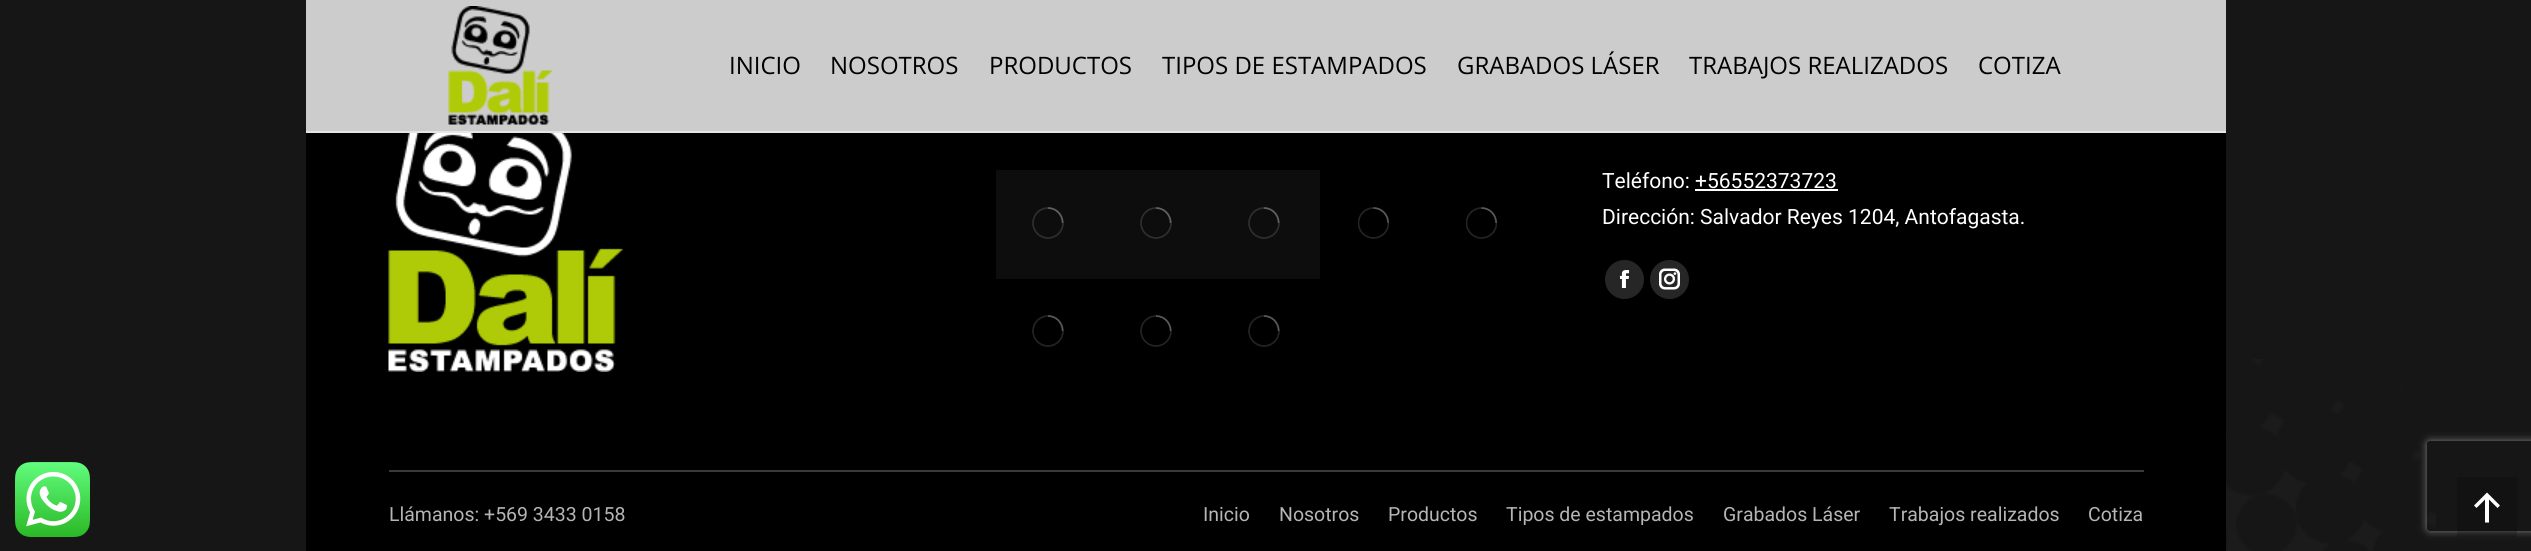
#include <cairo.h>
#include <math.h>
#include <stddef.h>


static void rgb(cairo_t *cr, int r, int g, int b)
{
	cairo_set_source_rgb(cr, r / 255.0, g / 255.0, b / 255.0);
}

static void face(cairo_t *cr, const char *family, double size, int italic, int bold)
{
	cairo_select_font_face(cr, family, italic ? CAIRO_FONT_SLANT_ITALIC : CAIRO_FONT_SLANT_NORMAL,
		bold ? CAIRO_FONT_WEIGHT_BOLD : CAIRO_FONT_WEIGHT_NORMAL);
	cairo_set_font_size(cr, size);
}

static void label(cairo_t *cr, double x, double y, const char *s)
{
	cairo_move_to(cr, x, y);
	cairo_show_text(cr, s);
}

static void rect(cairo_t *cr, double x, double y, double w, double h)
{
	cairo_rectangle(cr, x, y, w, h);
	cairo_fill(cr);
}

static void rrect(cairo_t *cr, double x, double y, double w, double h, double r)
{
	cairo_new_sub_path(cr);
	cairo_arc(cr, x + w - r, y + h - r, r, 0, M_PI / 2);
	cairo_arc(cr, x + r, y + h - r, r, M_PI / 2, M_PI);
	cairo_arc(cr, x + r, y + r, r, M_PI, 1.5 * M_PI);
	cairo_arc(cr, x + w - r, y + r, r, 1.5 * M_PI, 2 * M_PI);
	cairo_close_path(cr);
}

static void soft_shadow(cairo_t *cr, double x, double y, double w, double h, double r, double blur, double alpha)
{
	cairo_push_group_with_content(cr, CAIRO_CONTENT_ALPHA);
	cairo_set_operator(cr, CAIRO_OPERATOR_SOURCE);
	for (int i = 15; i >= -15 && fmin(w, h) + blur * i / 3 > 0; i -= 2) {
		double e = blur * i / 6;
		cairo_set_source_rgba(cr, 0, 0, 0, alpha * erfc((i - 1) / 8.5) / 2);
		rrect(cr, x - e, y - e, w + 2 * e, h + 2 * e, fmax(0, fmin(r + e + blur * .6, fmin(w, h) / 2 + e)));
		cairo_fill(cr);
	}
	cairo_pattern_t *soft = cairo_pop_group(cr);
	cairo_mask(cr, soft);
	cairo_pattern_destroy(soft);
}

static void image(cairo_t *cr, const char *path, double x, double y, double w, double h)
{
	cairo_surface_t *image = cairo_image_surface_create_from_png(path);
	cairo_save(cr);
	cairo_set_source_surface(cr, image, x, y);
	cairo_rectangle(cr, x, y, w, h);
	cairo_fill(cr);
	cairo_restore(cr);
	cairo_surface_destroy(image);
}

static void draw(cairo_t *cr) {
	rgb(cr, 22, 22, 22);
	cairo_paint(cr);
	image(cr, "image0.png", 2226, 359, 210, 192);
	rgb(cr, 204, 204, 204);
	rect(cr, 306, 0, 1920, 131);
	rgb(cr, 229, 229, 229);
	rect(cr, 306, 131, 1920, 2);
	image(cr, "image1.png", 448, 6, 104, 119);
	face(cr, "Open Sans", 24, 0, 0);
	rgb(cr, 0, 0, 0);
	label(cr, 729, 74, "INICIO");
	label(cr, 830, 74, "NOSOTROS");
	label(cr, 989, 74, "PRODUCTOS");
	label(cr, 1162, 74, "TIPOS DE ESTAMPADOS");
	label(cr, 1457, 74, "GRABADOS LÁSER");
	label(cr, 1689, 74, "TRABAJOS REALIZADOS");
	label(cr, 1978, 74, "COTIZA");
	image(cr, "image2.png", 15, 462, 75, 75);
	rect(cr, 306, 133, 1920, 418);
	image(cr, "image3.png", 388, 133, 236, 239);
	rgb(cr, 13, 13, 13);
	rect(cr, 996, 170, 324, 109);
	cairo_arc(cr, 1048, 223, 15, 0, 2 * M_PI);
	rgb(cr, 46, 46, 46);
	cairo_set_line_width(cr, 1.7);
	cairo_stroke(cr);
	cairo_new_path(cr);
	cairo_move_to(cr, 1062.5, 223);
	cairo_curve_to(cr, 1062.5, 214.5, 1056, 208, 1048, 208);
	cairo_set_source_rgba(cr, 1, 1, 1, 0.25);
	cairo_stroke(cr);
	cairo_arc(cr, 1156, 223, 15, 0, 2 * M_PI);
	rgb(cr, 46, 46, 46);
	cairo_stroke(cr);
	cairo_new_path(cr);
	cairo_move_to(cr, 1170.5, 223);
	cairo_curve_to(cr, 1170.5, 214.5, 1164, 208, 1156, 208);
	cairo_set_source_rgba(cr, 1, 1, 1, 0.25);
	cairo_stroke(cr);
	cairo_arc(cr, 1264, 223, 15, 0, 2 * M_PI);
	rgb(cr, 46, 46, 46);
	cairo_stroke(cr);
	cairo_new_path(cr);
	cairo_move_to(cr, 1278.5, 223);
	cairo_curve_to(cr, 1278.5, 214.5, 1272, 208, 1264, 208);
	cairo_set_source_rgba(cr, 1, 1, 1, 0.25);
	cairo_stroke(cr);
	cairo_save(cr);
	cairo_rectangle(cr, 1358, 207, 31, 32);
	cairo_clip(cr);
	cairo_arc(cr, 1373.5, 223, 15, 0, 2 * M_PI);
	rgb(cr, 35, 35, 35);
	cairo_stroke(cr);
	cairo_restore(cr);
	cairo_new_path(cr);
	cairo_move_to(cr, 1388, 223);
	cairo_curve_to(cr, 1388, 214.5, 1381.5, 208, 1373.5, 208);
	cairo_stroke(cr);
	cairo_save(cr);
	cairo_rectangle(cr, 1466, 207, 31, 32);
	cairo_clip(cr);
	cairo_arc(cr, 1481.5, 223, 15, 0, 2 * M_PI);
	rgb(cr, 35, 35, 35);
	cairo_stroke(cr);
	cairo_restore(cr);
	cairo_new_path(cr);
	cairo_move_to(cr, 1496, 223);
	cairo_curve_to(cr, 1496, 214.5, 1489.5, 208, 1481.5, 208);
	cairo_stroke(cr);
	cairo_arc(cr, 1048, 331, 15, 0, 2 * M_PI);
	rgb(cr, 35, 35, 35);
	cairo_stroke(cr);
	cairo_new_path(cr);
	cairo_move_to(cr, 1062.5, 331);
	cairo_curve_to(cr, 1062.5, 322.5, 1056, 316, 1048, 316);
	cairo_set_source_rgba(cr, 1, 1, 1, 0.25);
	cairo_stroke(cr);
	cairo_arc(cr, 1156, 331, 15, 0, 2 * M_PI);
	rgb(cr, 35, 35, 35);
	cairo_stroke(cr);
	cairo_new_path(cr);
	cairo_move_to(cr, 1170.5, 331);
	cairo_curve_to(cr, 1170.5, 322.5, 1164, 316, 1156, 316);
	cairo_set_source_rgba(cr, 1, 1, 1, 0.25);
	cairo_stroke(cr);
	cairo_arc(cr, 1264, 331, 15, 0, 2 * M_PI);
	rgb(cr, 35, 35, 35);
	cairo_stroke(cr);
	cairo_new_path(cr);
	cairo_move_to(cr, 1278.5, 331);
	cairo_curve_to(cr, 1278.5, 322.5, 1272, 316, 1264, 316);
	cairo_set_source_rgba(cr, 1, 1, 1, 0.25);
	cairo_stroke(cr);
	face(cr, "Roboto", 21, 0, 0);
	rgb(cr, 255, 255, 255);
	label(cr, 1602, 188, "Teléfono: +56552373723");
	rect(cr, 1695, 189, 143, 2);
	label(cr, 1602, 224, "Dirección: Salvador Reyes 1204, Antofagasta.");
	rgb(cr, 38, 38, 38);
	cairo_new_path(cr);
	cairo_arc(cr, 1624.5, 279.5, 19.5, 0, 2 * M_PI);
	cairo_fill(cr);
	image(cr, "image4.png", 1619, 270, 11, 18);
	cairo_arc(cr, 1669.5, 279.5, 19.5, 0, 2 * M_PI);
	cairo_fill(cr);
	image(cr, "image5.png", 1659, 268, 21, 22);
	rgb(cr, 57, 58, 58);
	rect(cr, 389, 470, 1755, 2);
	face(cr, "Roboto", 19.5, 0, 0);
	rgb(cr, 179, 181, 182);
	label(cr, 389, 521, "Llámanos: +569 3433 0158");
	label(cr, 1203, 521, "Inicio");
	label(cr, 1279, 521, "Nosotros");
	label(cr, 1388, 521, "Productos");
	label(cr, 1506, 521, "Tipos de estampados");
	label(cr, 1723, 521, "Grabados Láser");
	label(cr, 1889, 521, "Trabajos realizados");
	label(cr, 2088, 521, "Cotiza");
	cairo_save(cr);
	cairo_set_fill_rule(cr, CAIRO_FILL_RULE_EVEN_ODD);
	cairo_new_path(cr);
	cairo_move_to(cr, 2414, 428);
	cairo_line_to(cr, 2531, 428);
	cairo_line_to(cr, 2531, 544);
	cairo_line_to(cr, 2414, 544);
	cairo_close_path(cr);
	cairo_move_to(cr, 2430, 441);
	cairo_line_to(cr, 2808, 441);
	cairo_curve_to(cr, 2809.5, 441, 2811, 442.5, 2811, 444);
	cairo_line_to(cr, 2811, 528);
	cairo_curve_to(cr, 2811, 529.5, 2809.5, 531, 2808, 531);
	cairo_line_to(cr, 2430, 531);
	cairo_curve_to(cr, 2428.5, 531, 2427, 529.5, 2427, 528);
	cairo_line_to(cr, 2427, 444);
	cairo_curve_to(cr, 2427, 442.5, 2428.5, 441, 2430, 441);
	cairo_close_path(cr);
	cairo_clip(cr);
	rgb(cr, 128, 128, 128);
	soft_shadow(cr, 2427, 441, 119, 90, 3, 4, 1);
	cairo_restore(cr);
	cairo_set_source_rgba(cr, 0, 0, 0, 0.2);
	rect(cr, 2457, 477, 60, 60);
	rgb(cr, 255, 255, 255);
	cairo_new_path(cr);
	cairo_move_to(cr, 2474, 505.5);
	cairo_line_to(cr, 2476.5, 508);
	cairo_line_to(cr, 2485, 499.5);
	cairo_line_to(cr, 2485, 522.5);
	cairo_line_to(cr, 2489, 522.5);
	cairo_line_to(cr, 2489, 499.5);
	cairo_line_to(cr, 2497.5, 508);
	cairo_line_to(cr, 2500, 505.5);
	cairo_line_to(cr, 2487, 492.5);
	cairo_close_path(cr);
	cairo_fill(cr);
}

int main(void) {
	cairo_surface_t *surface = cairo_image_surface_create(CAIRO_FORMAT_RGB24, 2531, 551);
	cairo_t *cr = cairo_create(surface);
	cairo_font_options_t *options = cairo_font_options_create();
	cairo_font_options_set_hint_metrics(options, CAIRO_HINT_METRICS_OFF);
	cairo_font_options_set_hint_style(options, CAIRO_HINT_STYLE_NONE);
	cairo_set_font_options(cr, options);
	cairo_set_miter_limit(cr, 4);
	draw(cr);
	cairo_surface_write_to_png(surface, "render.png");
	cairo_font_options_destroy(options);
	cairo_destroy(cr);
	cairo_surface_destroy(surface);
	return 0;
}
